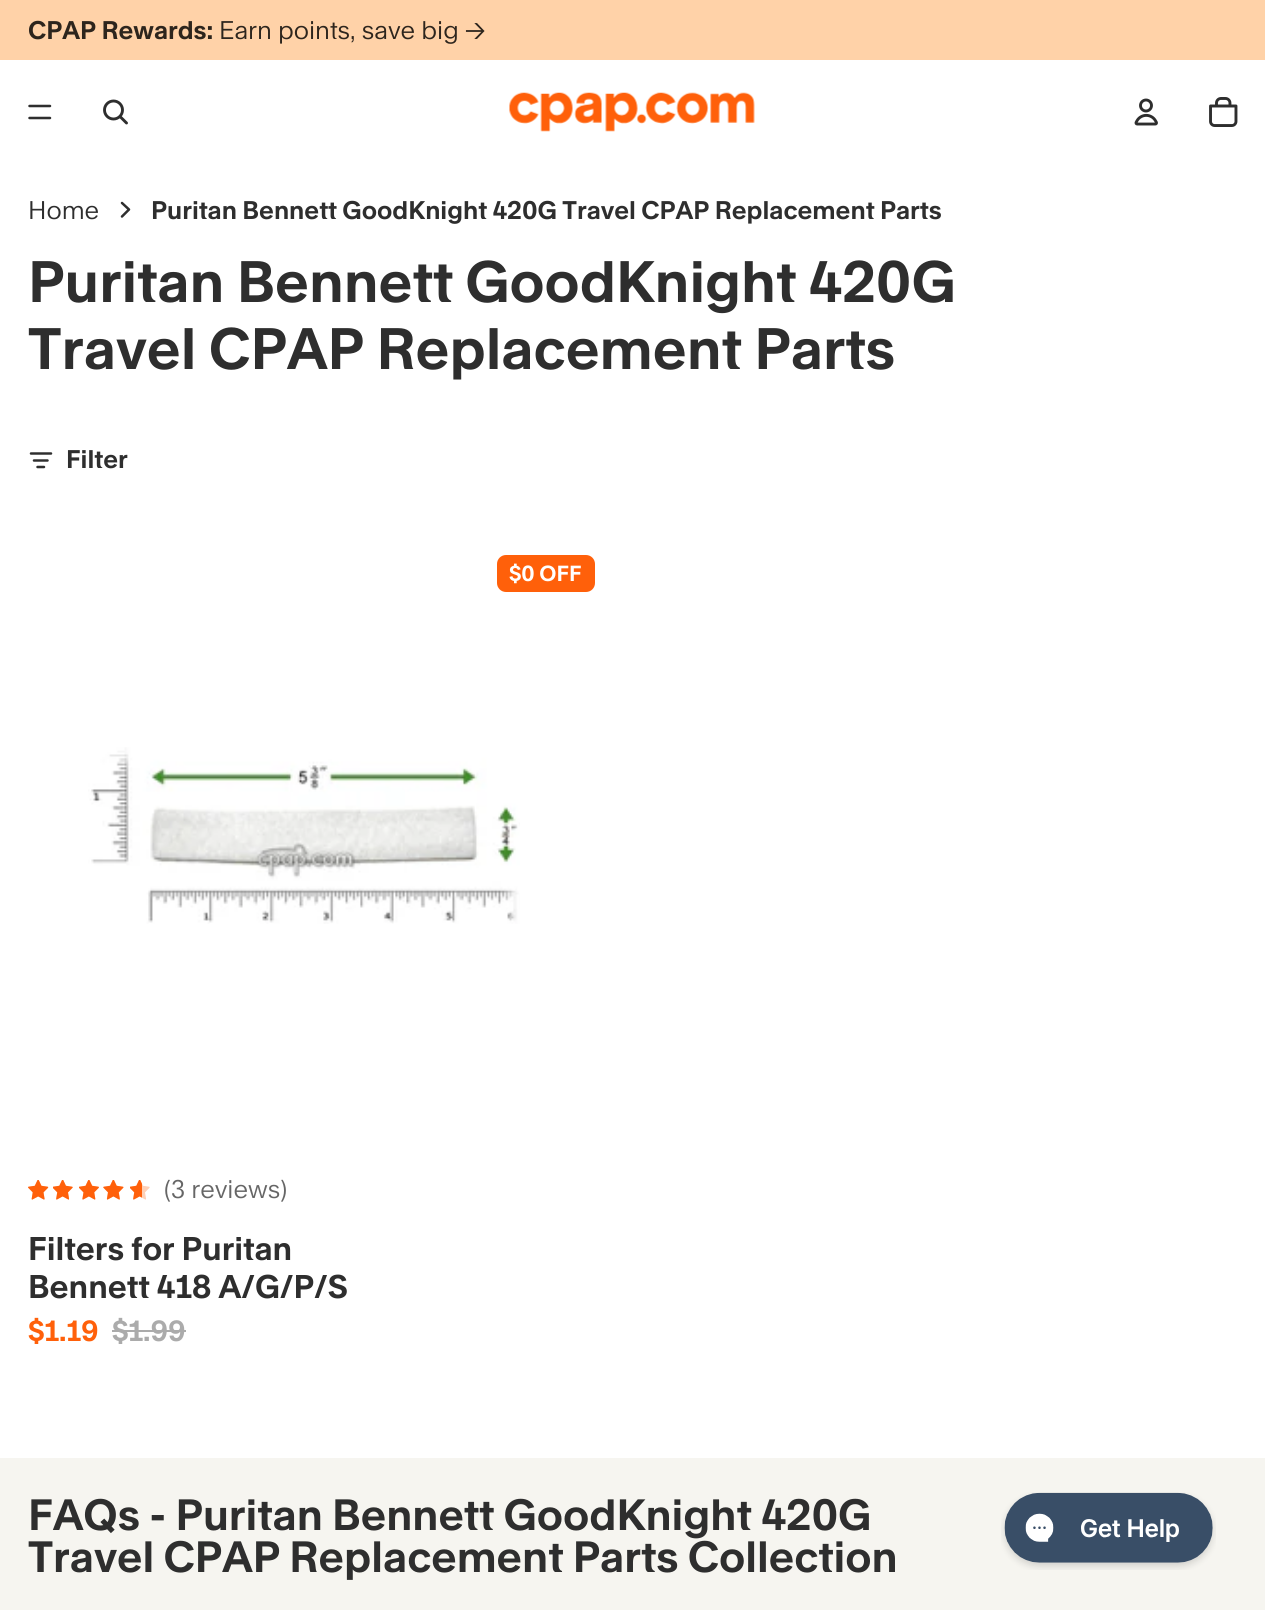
#include <cairo.h>
#include <math.h>
#include <stddef.h>


static void rgb(cairo_t *cr, int r, int g, int b)
{
	cairo_set_source_rgb(cr, r / 255.0, g / 255.0, b / 255.0);
}

static void face(cairo_t *cr, const char *family, double size, int italic, int bold)
{
	cairo_select_font_face(cr, family, italic ? CAIRO_FONT_SLANT_ITALIC : CAIRO_FONT_SLANT_NORMAL,
		bold ? CAIRO_FONT_WEIGHT_BOLD : CAIRO_FONT_WEIGHT_NORMAL);
	cairo_set_font_size(cr, size);
}

static void label(cairo_t *cr, double x, double y, const char *s)
{
	cairo_move_to(cr, x, y);
	cairo_show_text(cr, s);
}

static void rect(cairo_t *cr, double x, double y, double w, double h)
{
	cairo_rectangle(cr, x, y, w, h);
	cairo_fill(cr);
}

static void rrect(cairo_t *cr, double x, double y, double w, double h, double r)
{
	cairo_new_sub_path(cr);
	cairo_arc(cr, x + w - r, y + h - r, r, 0, M_PI / 2);
	cairo_arc(cr, x + r, y + h - r, r, M_PI / 2, M_PI);
	cairo_arc(cr, x + r, y + r, r, M_PI, 1.5 * M_PI);
	cairo_arc(cr, x + w - r, y + r, r, 1.5 * M_PI, 2 * M_PI);
	cairo_close_path(cr);
}

static void image(cairo_t *cr, const char *path, double x, double y, double w, double h)
{
	cairo_surface_t *image = cairo_image_surface_create_from_png(path);
	cairo_save(cr);
	cairo_set_source_surface(cr, image, x, y);
	cairo_rectangle(cr, x, y, w, h);
	cairo_fill(cr);
	cairo_restore(cr);
	cairo_surface_destroy(image);
}

static void draw(cairo_t *cr) {
	rgb(cr, 255, 255, 255);
	cairo_paint(cr);
	rgb(cr, 255, 210, 168);
	rect(cr, 0, 0, 1265, 60);
	face(cr, "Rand", 24.5, 0, 1);
	rgb(cr, 45, 37, 29);
	label(cr, 28, 39, "CPAP Rewards:");
	face(cr, "Rand", 24.5, 0, 0);
	label(cr, 219, 39, "Earn points, save big →");
	cairo_new_path(cr);
	cairo_move_to(cr, 29.5, 106);
	cairo_line_to(cr, 50, 106);
	cairo_move_to(cr, 29.5, 118);
	cairo_line_to(cr, 50, 118);
	rgb(cr, 46, 46, 46);
	cairo_set_line_width(cr, 2.5);
	cairo_set_line_cap(cr, CAIRO_LINE_CAP_ROUND);
	cairo_stroke(cr);
	cairo_arc(cr, 113.5, 110, 9, 0, 2 * M_PI);
	cairo_set_line_width(cr, 2.9);
	cairo_set_line_cap(cr, CAIRO_LINE_CAP_BUTT);
	cairo_stroke(cr);
	cairo_new_path(cr);
	cairo_move_to(cr, 120.5, 117);
	cairo_line_to(cr, 126.5, 123);
	cairo_set_line_cap(cr, CAIRO_LINE_CAP_ROUND);
	cairo_set_line_join(cr, CAIRO_LINE_JOIN_ROUND);
	cairo_stroke(cr);
	image(cr, "image0.png", 509, 92, 246, 40);
	image(cr, "image1.png", 1134, 98, 24, 28);
	image(cr, "image2.png", 1209, 97, 29, 30);
	label(cr, 28, 219, "Home");
	cairo_new_path(cr);
	cairo_move_to(cr, 122, 203);
	cairo_line_to(cr, 129, 209.5);
	cairo_line_to(cr, 122, 216.5);
	cairo_set_line_width(cr, 2.5);
	cairo_stroke(cr);
	face(cr, "Rand", 24.5, 0, 1);
	label(cr, 151, 219, "Puritan Bennett GoodKnight 420G Travel CPAP Replacement Parts");
	face(cr, "Rand", 56, 0, 1);
	label(cr, 28, 302, "Puritan Bennett GoodKnight 420G");
	label(cr, 28, 369, "Travel CPAP Replacement Parts");
	cairo_new_path(cr);
	cairo_move_to(cr, 51, 453.5);
	cairo_line_to(cr, 31, 453.5);
	cairo_move_to(cr, 47.5, 460.5);
	cairo_line_to(cr, 34, 460.5);
	cairo_move_to(cr, 37.5, 467);
	cairo_line_to(cr, 44, 467);
	cairo_set_line_join(cr, CAIRO_LINE_JOIN_MITER);
	cairo_stroke(cr);
	face(cr, "Rand", 24.5, 0, 1);
	label(cr, 66, 468, "Filter");
	rgb(cr, 255, 96, 10);
	rrect(cr, 497, 555, 98, 37, 9);
	cairo_fill(cr);
	face(cr, "Rand", 21, 0, 1);
	rgb(cr, 255, 255, 255);
	label(cr, 509, 581, "$0 OFF");
	image(cr, "image3.png", 88, 747, 432, 177);
	image(cr, "image4.png", 28, 1180, 21, 20);
	image(cr, "image5.png", 53, 1180, 20, 20);
	image(cr, "image6.png", 79, 1180, 20, 20);
	image(cr, "image7.png", 103, 1180, 21, 20);
	image(cr, "image5.png", 130, 1180, 20, 20);
	image(cr, "image8.png", 28, 1180, 21, 20);
	image(cr, "image9.png", 53, 1180, 20, 20);
	image(cr, "image10.png", 79, 1180, 20, 20);
	image(cr, "image11.png", 103, 1180, 21, 20);
	image(cr, "image12.png", 130, 1180, 12, 20);
	face(cr, "Rand", 24.5, 0, 0);
	rgb(cr, 102, 102, 102);
	label(cr, 164, 1198, "(3 reviews)");
	face(cr, "Rand", 31.5, 0, 1);
	rgb(cr, 46, 46, 46);
	label(cr, 28, 1260, "Filters for Puritan");
	label(cr, 28, 1298, "Bennett 418 A/G/P/S");
	face(cr, "Rand", 28, 0, 1);
	rgb(cr, 255, 96, 10);
	label(cr, 28, 1341, "$1.19");
	rgb(cr, 171, 171, 171);
	label(cr, 112, 1341, "$1.99");
	rect(cr, 112, 1330, 74, 2);
	rgb(cr, 246, 245, 240);
	rect(cr, 0, 1458, 1265, 152);
	face(cr, "Rand", 42, 0, 1);
	rgb(cr, 46, 46, 46);
	label(cr, 28, 1530, "FAQs - Puritan Bennett GoodKnight 420G");
	label(cr, 28, 1572, "Travel CPAP Replacement Parts Collection");
	image(cr, "image13.png", 1001, 1492, 215, 78);
}

int main(void) {
	cairo_surface_t *surface = cairo_image_surface_create(CAIRO_FORMAT_RGB24, 1265, 1610);
	cairo_t *cr = cairo_create(surface);
	cairo_font_options_t *options = cairo_font_options_create();
	cairo_font_options_set_hint_metrics(options, CAIRO_HINT_METRICS_OFF);
	cairo_font_options_set_hint_style(options, CAIRO_HINT_STYLE_NONE);
	cairo_set_font_options(cr, options);
	cairo_set_miter_limit(cr, 4);
	draw(cr);
	cairo_surface_write_to_png(surface, "render.png");
	cairo_font_options_destroy(options);
	cairo_destroy(cr);
	cairo_surface_destroy(surface);
	return 0;
}
